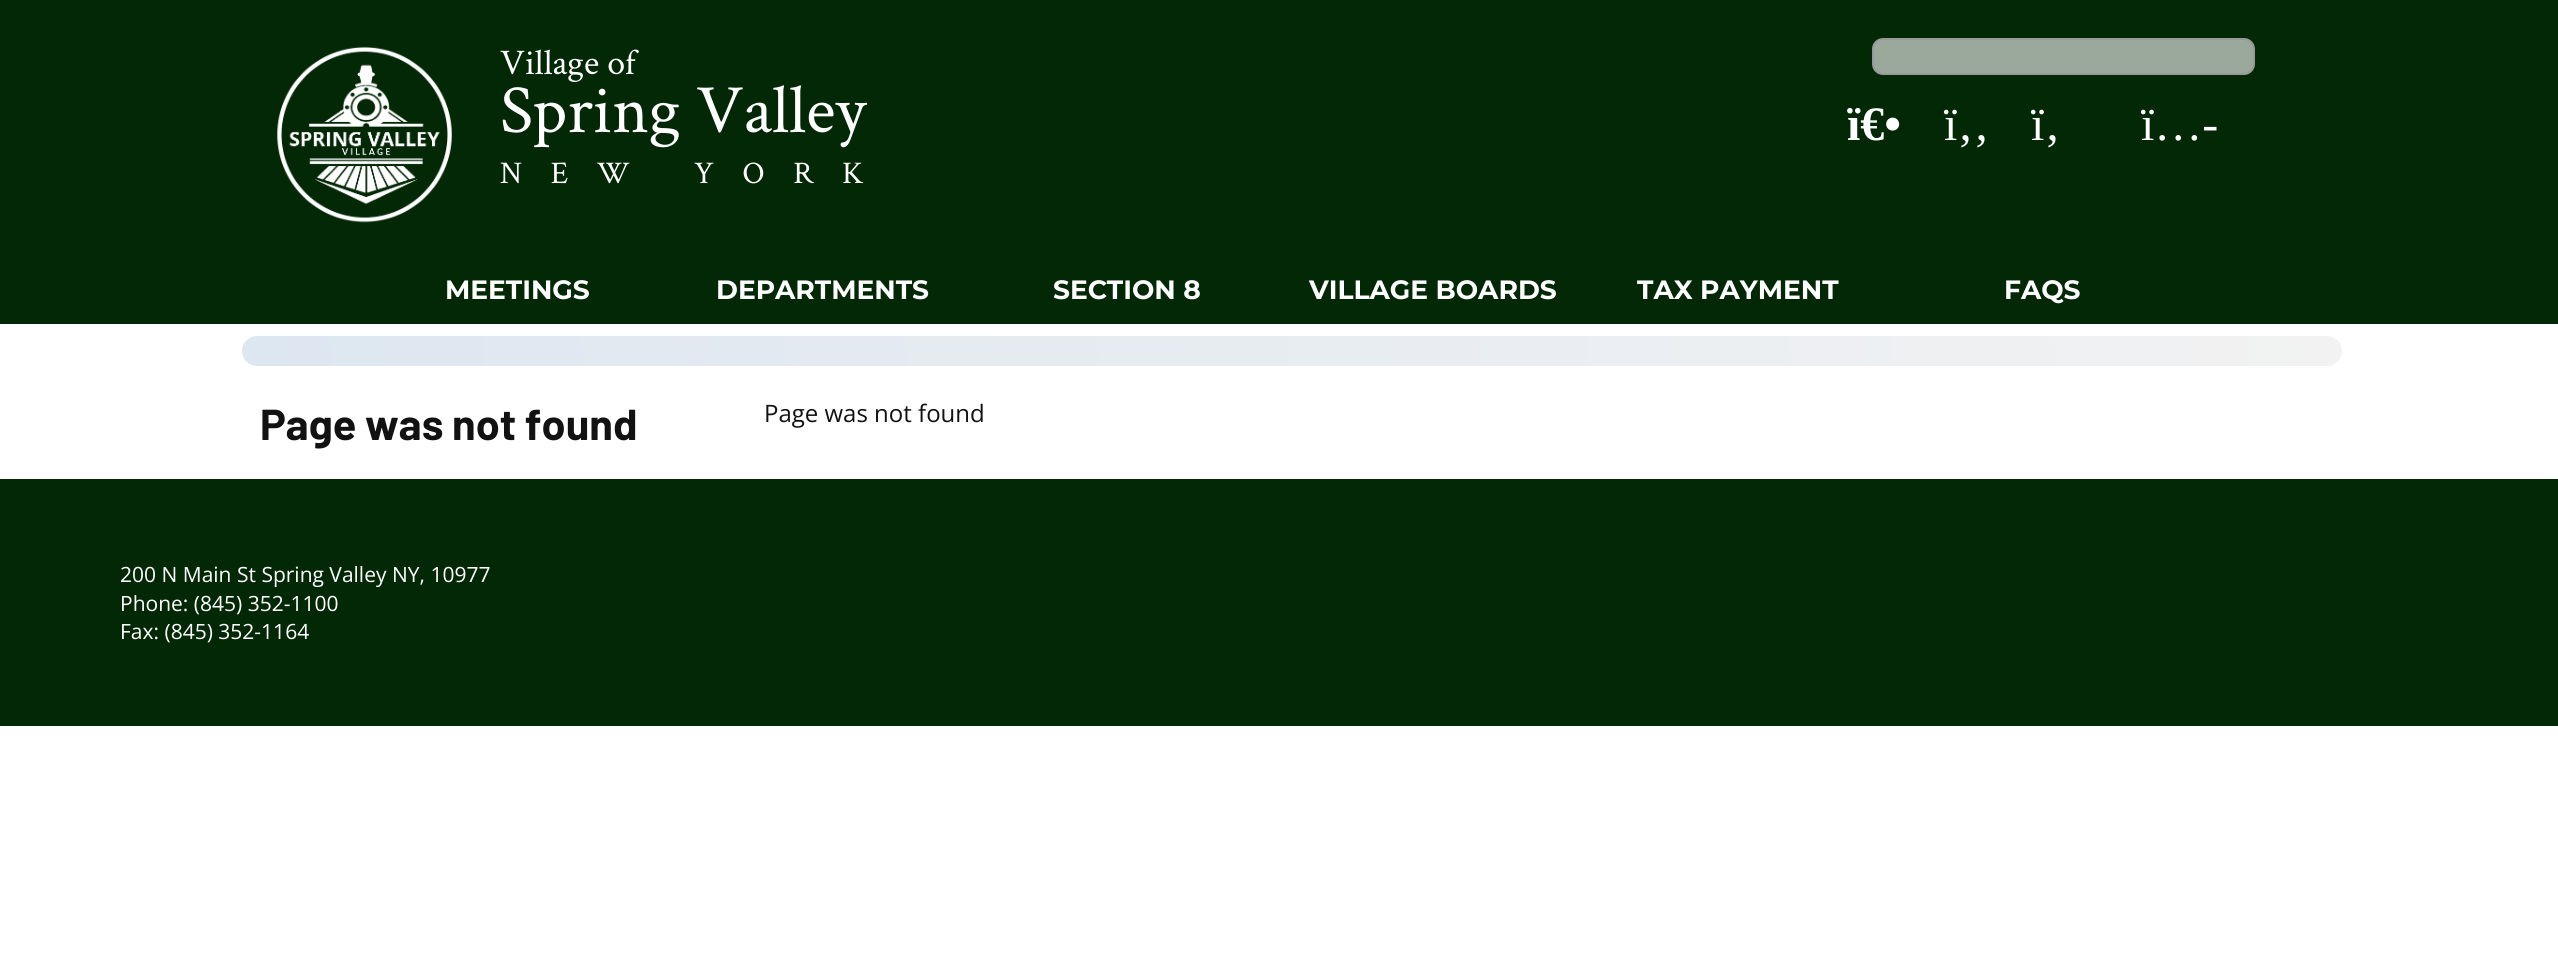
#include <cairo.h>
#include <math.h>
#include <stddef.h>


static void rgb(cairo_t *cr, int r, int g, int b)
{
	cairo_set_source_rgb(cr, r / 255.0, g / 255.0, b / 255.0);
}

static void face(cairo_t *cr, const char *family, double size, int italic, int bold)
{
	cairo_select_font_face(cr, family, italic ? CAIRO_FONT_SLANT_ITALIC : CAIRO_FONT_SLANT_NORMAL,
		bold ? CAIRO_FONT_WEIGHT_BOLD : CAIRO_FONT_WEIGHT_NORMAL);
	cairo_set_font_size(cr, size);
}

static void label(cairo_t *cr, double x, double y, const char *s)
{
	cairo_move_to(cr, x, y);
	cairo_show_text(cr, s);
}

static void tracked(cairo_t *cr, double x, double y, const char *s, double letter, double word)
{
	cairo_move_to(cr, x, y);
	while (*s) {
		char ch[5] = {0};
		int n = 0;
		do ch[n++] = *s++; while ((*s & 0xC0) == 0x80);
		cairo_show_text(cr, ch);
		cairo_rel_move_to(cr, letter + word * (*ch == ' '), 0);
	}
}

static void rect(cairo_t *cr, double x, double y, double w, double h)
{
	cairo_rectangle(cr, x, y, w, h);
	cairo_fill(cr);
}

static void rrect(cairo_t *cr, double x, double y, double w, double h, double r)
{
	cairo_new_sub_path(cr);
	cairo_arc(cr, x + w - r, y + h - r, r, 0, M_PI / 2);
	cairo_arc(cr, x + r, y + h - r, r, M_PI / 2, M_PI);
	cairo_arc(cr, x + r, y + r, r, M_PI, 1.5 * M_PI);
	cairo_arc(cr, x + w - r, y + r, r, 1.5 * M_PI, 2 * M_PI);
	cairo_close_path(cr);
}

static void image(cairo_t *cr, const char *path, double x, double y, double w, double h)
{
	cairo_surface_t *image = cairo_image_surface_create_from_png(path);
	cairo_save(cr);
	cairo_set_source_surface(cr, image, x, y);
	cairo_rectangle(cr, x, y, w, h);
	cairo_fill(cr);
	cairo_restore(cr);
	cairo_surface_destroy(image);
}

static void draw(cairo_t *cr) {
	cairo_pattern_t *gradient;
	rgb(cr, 255, 255, 255);
	cairo_paint(cr);
	rgb(cr, 3, 40, 5);
	rect(cr, 0, 0, 2558, 324);
	image(cr, "image0.png", 277, 46, 175, 177);
	face(cr, "Crimson Text", 36, 0, 0);
	rgb(cr, 255, 255, 255);
	label(cr, 500, 74, "Village of");
	face(cr, "Crimson Text", 69, 0, 0);
	label(cr, 500, 132, "Spring Valley");
	face(cr, "Crimson Text", 31.5, 0, 0);
	tracked(cr, 500, 183, "NEW YORK", 28.5, 0);
	rgb(cr, 154, 169, 155);
	rrect(cr, 1873, 39, 381, 35, 10);
	cairo_fill_preserve(cr);
	rgb(cr, 153, 153, 153);
	cairo_stroke(cr);
	face(cr, "Liberation Serif", 48, 0, 1);
	rgb(cr, 255, 255, 255);
	label(cr, 1847, 140, "ï€•");
	face(cr, "Liberation Serif", 48, 0, 0);
	label(cr, 1944, 140, "ï‚‚");
	label(cr, 2031, 140, "ï‚");
	label(cr, 2141, 140, "ï…-");
	face(cr, "Montserrat", 26.5, 0, 1);
	label(cr, 445, 299, "MEETINGS");
	label(cr, 716, 299, "DEPARTMENTS");
	label(cr, 1053, 299, "SECTION 8");
	label(cr, 1309, 299, "VILLAGE BOARDS");
	label(cr, 1637, 299, "TAX PAYMENT");
	label(cr, 2004, 299, "FAQS");
	gradient = cairo_pattern_create_linear(248, 442, 2335, 260);
	cairo_pattern_add_color_stop_rgba(gradient, 0, 0.867, 0.906, 0.945, 1);
	cairo_pattern_add_color_stop_rgba(gradient, 1, 0.949, 0.949, 0.949, 1);
	cairo_set_source(cr, gradient);
	cairo_pattern_destroy(gradient);
	rrect(cr, 242, 336, 2100, 30, 15);
	cairo_fill(cr);
	face(cr, "Barlow", 43.25, 0, 1);
	rgb(cr, 18, 18, 18);
	label(cr, 260, 440, "Page was not found");
	face(cr, "Open Sans", 24, 0, 0);
	label(cr, 764, 422, "Page was not found");
	rgb(cr, 3, 40, 5);
	rect(cr, 0, 479, 2558, 247);
	face(cr, "Open Sans", 21, 0, 0);
	rgb(cr, 255, 255, 255);
	label(cr, 120, 582, "200 N Main St Spring Valley NY, 10977");
	label(cr, 120, 611, "Phone: (845) 352-1100");
	label(cr, 120, 639, "Fax: (845) 352-1164");
}

int main(void) {
	cairo_surface_t *surface = cairo_image_surface_create(CAIRO_FORMAT_RGB24, 2558, 956);
	cairo_t *cr = cairo_create(surface);
	cairo_font_options_t *options = cairo_font_options_create();
	cairo_font_options_set_hint_metrics(options, CAIRO_HINT_METRICS_OFF);
	cairo_font_options_set_hint_style(options, CAIRO_HINT_STYLE_NONE);
	cairo_set_font_options(cr, options);
	cairo_set_miter_limit(cr, 4);
	draw(cr);
	cairo_surface_write_to_png(surface, "render.png");
	cairo_font_options_destroy(options);
	cairo_destroy(cr);
	cairo_surface_destroy(surface);
	return 0;
}
